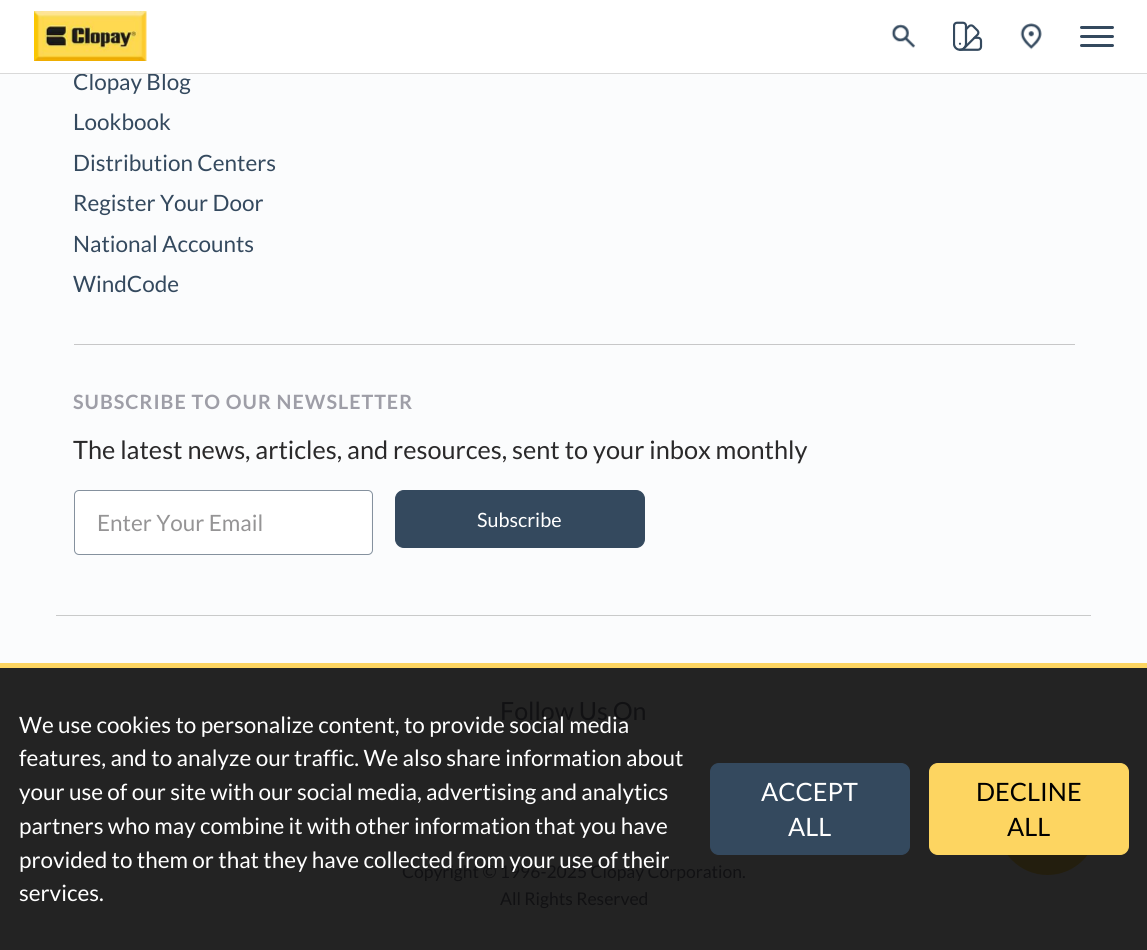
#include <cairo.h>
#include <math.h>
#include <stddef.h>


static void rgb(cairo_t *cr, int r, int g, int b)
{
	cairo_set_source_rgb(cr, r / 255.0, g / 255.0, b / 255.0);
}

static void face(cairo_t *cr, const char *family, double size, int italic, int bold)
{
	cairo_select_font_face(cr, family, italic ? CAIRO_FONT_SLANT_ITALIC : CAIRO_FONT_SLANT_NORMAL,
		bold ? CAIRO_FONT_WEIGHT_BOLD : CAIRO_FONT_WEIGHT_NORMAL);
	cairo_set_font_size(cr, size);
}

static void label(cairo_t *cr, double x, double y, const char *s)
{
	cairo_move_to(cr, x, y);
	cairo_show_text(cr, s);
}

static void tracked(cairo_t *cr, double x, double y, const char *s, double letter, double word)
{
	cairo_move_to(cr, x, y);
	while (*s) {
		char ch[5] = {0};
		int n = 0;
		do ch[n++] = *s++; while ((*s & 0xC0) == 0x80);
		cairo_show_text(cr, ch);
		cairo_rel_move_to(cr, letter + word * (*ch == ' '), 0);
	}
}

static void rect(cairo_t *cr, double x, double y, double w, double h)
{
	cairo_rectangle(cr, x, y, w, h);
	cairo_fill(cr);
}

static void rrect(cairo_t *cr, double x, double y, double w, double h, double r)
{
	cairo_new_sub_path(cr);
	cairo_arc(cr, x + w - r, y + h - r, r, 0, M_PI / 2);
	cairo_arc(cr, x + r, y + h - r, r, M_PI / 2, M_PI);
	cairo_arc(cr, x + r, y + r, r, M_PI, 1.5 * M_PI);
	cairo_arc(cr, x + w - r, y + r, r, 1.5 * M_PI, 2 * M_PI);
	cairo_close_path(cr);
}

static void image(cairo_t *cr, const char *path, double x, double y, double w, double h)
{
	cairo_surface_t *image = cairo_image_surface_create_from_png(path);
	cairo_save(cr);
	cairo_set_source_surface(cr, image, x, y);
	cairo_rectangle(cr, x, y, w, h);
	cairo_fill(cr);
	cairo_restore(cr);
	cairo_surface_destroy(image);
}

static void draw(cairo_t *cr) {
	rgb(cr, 251, 252, 253);
	cairo_paint(cr);
	rgb(cr, 255, 255, 255);
	rect(cr, 0, 0, 1147, 73);
	face(cr, "Lato", 22.5, 0, 0);
	rgb(cr, 52, 73, 94);
	label(cr, 73, 90, "Clopay Blog");
	rgb(cr, 217, 217, 217);
	rect(cr, 0, 73, 1147, 1);
	image(cr, "image0.png", 34, 11, 113, 50);
	image(cr, "image1.png", 891, 24, 25, 24);
	image(cr, "image2.png", 953, 21, 30, 30);
	image(cr, "image3.png", 1020, 23, 22, 27);
	rgb(cr, 52, 73, 94);
	rrect(cr, 1080, 26, 34, 3, 1.5);
	cairo_fill(cr);
	rrect(cr, 1080, 35, 34, 3, 1.5);
	cairo_fill(cr);
	rrect(cr, 1080, 44, 34, 3, 1.5);
	cairo_fill(cr);
	rgb(cr, 35, 35, 35);
	rect(cr, 0, 668, 1147, 282);
	rgb(cr, 52, 73, 94);
	label(cr, 73, 130, "Lookbook");
	label(cr, 73, 171, "Distribution Centers");
	label(cr, 73, 211, "Register Your Door");
	label(cr, 73, 252, "National Accounts");
	label(cr, 73, 292, "WindCode");
	rgb(cr, 199, 199, 200);
	rect(cr, 74, 344, 1001, 1);
	face(cr, "Lato", 19.7, 0, 1);
	rgb(cr, 158, 158, 167);
	tracked(cr, 73, 409, "SUBSCRIBE TO OUR NEWSLETTER", 1, 0);
	face(cr, "Lato", 25.3, 0, 0);
	rgb(cr, 42, 41, 42);
	label(cr, 73, 459, "The latest news, articles, and resources, sent to your inbox monthly");
	rgb(cr, 255, 255, 255);
	rrect(cr, 75, 491, 296, 63, 4);
	cairo_fill(cr);
	rrect(cr, 74.5, 490.5, 298, 64, 4.5);
	rgb(cr, 133, 145, 158);
	cairo_set_line_width(cr, 1);
	cairo_stroke(cr);
	face(cr, "Lato", 22.5, 0, 0);
	rgb(cr, 149, 148, 149);
	label(cr, 97, 531, "Enter Your Email");
	rgb(cr, 52, 73, 94);
	rrect(cr, 395.5, 490.5, 249, 57, 8.5);
	cairo_fill_preserve(cr);
	cairo_stroke(cr);
	face(cr, "Lato", 19.7, 0, 0);
	rgb(cr, 255, 255, 255);
	label(cr, 477, 527, "Subscribe");
	rgb(cr, 201, 202, 202);
	rect(cr, 56, 615, 1035, 1);
	face(cr, "Lato", 25, 0, 0);
	rgb(cr, 17, 17, 19);
	label(cr, 500, 720, "Follow Us On");
	face(cr, "Lato", 17.5, 0, 0);
	label(cr, 402, 878, "Copyright © 1996-2025 Clopay Corporation.");
	label(cr, 500, 905, "All Rights Reserved");
	rgb(cr, 253, 213, 97);
	rect(cr, 0, 663, 1147, 5);
	face(cr, "Lato", 22.5, 0, 0);
	rgb(cr, 255, 255, 255);
	label(cr, 19, 733, "We use cookies to personalize content, to provide social media");
	label(cr, 19, 766, "features, and to analyze our traffic. We also share information about");
	label(cr, 19, 800, "your use of our site with our social media, advertising and analytics");
	label(cr, 19, 834, "partners who may combine it with other information that you have");
	label(cr, 19, 868, "provided to them or that they have collected from your use of their");
	label(cr, 19, 901, "services.");
	rgb(cr, 52, 73, 94);
	rrect(cr, 710.5, 763.5, 199, 91, 8.5);
	cairo_fill_preserve(cr);
	cairo_stroke(cr);
	face(cr, "Lato", 25.3, 0, 0);
	rgb(cr, 255, 255, 255);
	label(cr, 761, 801, "ACCEPT");
	label(cr, 788, 836, "ALL");
	rgb(cr, 35, 30, 14);
	cairo_new_path(cr);
	cairo_arc(cr, 1047.5, 825, 50, 0, 2 * M_PI);
	cairo_fill(cr);
	rgb(cr, 253, 213, 97);
	rrect(cr, 929.5, 763.5, 199, 91, 8.5);
	cairo_fill_preserve(cr);
	cairo_stroke(cr);
	rgb(cr, 0, 0, 0);
	label(cr, 976, 801, "DECLINE");
	label(cr, 1007, 836, "ALL");
}

int main(void) {
	cairo_surface_t *surface = cairo_image_surface_create(CAIRO_FORMAT_RGB24, 1147, 950);
	cairo_t *cr = cairo_create(surface);
	cairo_font_options_t *options = cairo_font_options_create();
	cairo_font_options_set_hint_metrics(options, CAIRO_HINT_METRICS_OFF);
	cairo_font_options_set_hint_style(options, CAIRO_HINT_STYLE_NONE);
	cairo_set_font_options(cr, options);
	cairo_set_miter_limit(cr, 4);
	draw(cr);
	cairo_surface_write_to_png(surface, "render.png");
	cairo_font_options_destroy(options);
	cairo_destroy(cr);
	cairo_surface_destroy(surface);
	return 0;
}
